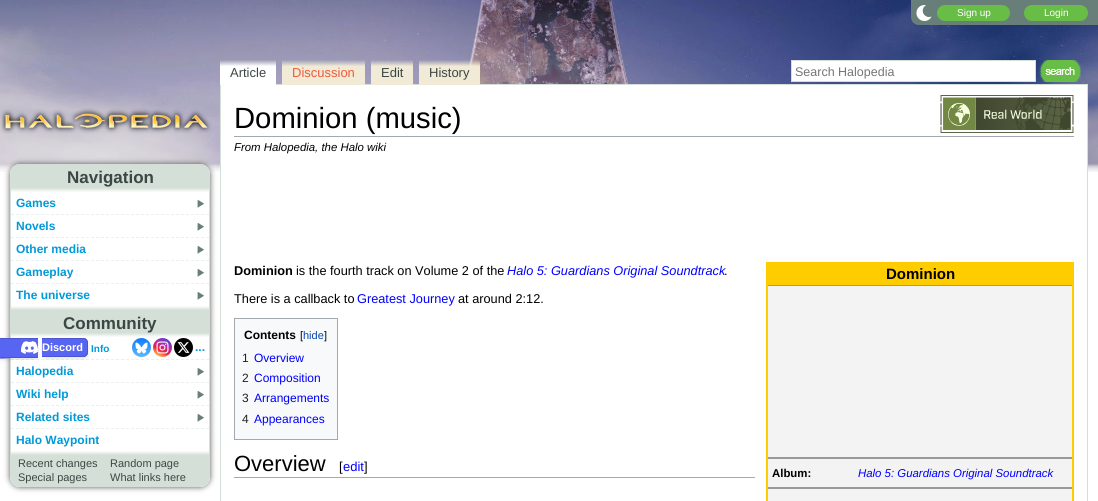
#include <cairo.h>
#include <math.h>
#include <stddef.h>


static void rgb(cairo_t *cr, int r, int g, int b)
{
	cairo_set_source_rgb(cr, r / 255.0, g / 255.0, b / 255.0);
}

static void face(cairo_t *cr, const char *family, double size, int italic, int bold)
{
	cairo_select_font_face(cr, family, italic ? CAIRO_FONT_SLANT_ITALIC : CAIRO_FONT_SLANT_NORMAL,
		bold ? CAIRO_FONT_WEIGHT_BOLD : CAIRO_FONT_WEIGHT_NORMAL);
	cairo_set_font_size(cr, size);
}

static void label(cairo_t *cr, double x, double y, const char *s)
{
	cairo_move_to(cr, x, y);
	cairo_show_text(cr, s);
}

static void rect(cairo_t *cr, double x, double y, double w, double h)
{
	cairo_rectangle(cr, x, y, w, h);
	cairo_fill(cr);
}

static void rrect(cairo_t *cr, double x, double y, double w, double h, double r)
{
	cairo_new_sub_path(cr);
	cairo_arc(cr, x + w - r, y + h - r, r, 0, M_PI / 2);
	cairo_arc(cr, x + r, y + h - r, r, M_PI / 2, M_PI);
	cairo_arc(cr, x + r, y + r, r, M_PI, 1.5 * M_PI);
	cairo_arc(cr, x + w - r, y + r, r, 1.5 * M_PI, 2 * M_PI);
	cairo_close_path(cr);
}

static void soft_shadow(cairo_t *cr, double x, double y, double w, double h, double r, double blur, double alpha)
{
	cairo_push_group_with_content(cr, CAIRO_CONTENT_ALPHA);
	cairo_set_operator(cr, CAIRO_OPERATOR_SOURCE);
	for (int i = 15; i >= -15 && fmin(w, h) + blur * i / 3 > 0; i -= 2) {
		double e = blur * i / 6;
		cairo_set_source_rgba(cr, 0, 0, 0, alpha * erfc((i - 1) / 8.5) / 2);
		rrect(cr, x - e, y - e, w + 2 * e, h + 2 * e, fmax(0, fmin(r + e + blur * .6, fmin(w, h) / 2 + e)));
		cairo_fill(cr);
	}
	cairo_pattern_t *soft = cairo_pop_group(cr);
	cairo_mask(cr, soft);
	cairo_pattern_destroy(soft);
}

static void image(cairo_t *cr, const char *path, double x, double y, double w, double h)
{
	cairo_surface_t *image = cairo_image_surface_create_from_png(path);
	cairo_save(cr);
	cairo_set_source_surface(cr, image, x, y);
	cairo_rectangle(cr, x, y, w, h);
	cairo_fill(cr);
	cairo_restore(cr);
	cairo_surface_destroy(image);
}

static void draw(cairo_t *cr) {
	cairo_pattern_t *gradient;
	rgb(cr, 255, 255, 255);
	cairo_paint(cr);
	image(cr, "image0.png", 0, 0, 1098, 172);
	rgb(cr, 104, 127, 121);
	cairo_new_path(cr);
	cairo_move_to(cr, 911, 0);
	cairo_line_to(cr, 1098, 0);
	cairo_line_to(cr, 1098, 25);
	cairo_line_to(cr, 919, 25);
	cairo_curve_to(cr, 914.5, 25, 911, 21.5, 911, 17);
	cairo_close_path(cr);
	cairo_fill(cr);
	image(cr, "image1.png", 916, 5, 16, 16);
	rgb(cr, 104, 189, 70);
	rrect(cr, 937, 5, 73, 16, 8);
	cairo_fill(cr);
	face(cr, "Liberation Sans", 10, 0, 0);
	rgb(cr, 255, 255, 255);
	label(cr, 957, 16, "Sign up");
	rgb(cr, 104, 189, 70);
	rrect(cr, 1024, 5, 64, 16, 8);
	cairo_fill(cr);
	rgb(cr, 255, 255, 255);
	label(cr, 1044, 16, "Login");
	cairo_rectangle(cr, 791.5, 60.5, 244, 21);
	cairo_fill_preserve(cr);
	rgb(cr, 212, 223, 215);
	cairo_set_line_width(cr, 1);
	cairo_stroke(cr);
	face(cr, "Liberation Sans", 12.5, 0, 0);
	rgb(cr, 117, 117, 117);
	label(cr, 795, 76, "Search Halopedia");
	image(cr, "image2.png", 1037, 60, 44, 22);
	image(cr, "image3.png", 0, 108, 212, 26);
	rgb(cr, 255, 255, 255);
	rect(cr, 221, 85, 866, 87);
	cairo_rectangle(cr, 220.5, 84.5, 867, 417);
	rgb(cr, 212, 223, 215);
	cairo_stroke(cr);
	gradient = cairo_pattern_create_linear(248, 85, 248, 60);
	cairo_pattern_add_color_stop_rgba(gradient, 0.75, 1, 1, 1, 1);
	cairo_pattern_add_color_stop_rgba(gradient, 1, 1, 1, 1, 0);
	cairo_set_source(cr, gradient);
	cairo_pattern_destroy(gradient);
	rect(cr, 220, 60, 56, 25);
	face(cr, "Liberation Sans", 13, 0, 0);
	rgb(cr, 59, 71, 68);
	label(cr, 230, 77, "Article");
	gradient = cairo_pattern_create_linear(324, 85, 324, 60);
	cairo_pattern_add_color_stop_rgba(gradient, 0.75, 0.941, 0.918, 0.839, 1);
	cairo_pattern_add_color_stop_rgba(gradient, 1, 0.941, 0.918, 0.839, 0);
	cairo_set_source(cr, gradient);
	cairo_pattern_destroy(gradient);
	rect(cr, 282, 60, 83, 25);
	rgb(cr, 241, 90, 58);
	label(cr, 292, 77, "Discussion");
	gradient = cairo_pattern_create_linear(392, 85, 392, 60);
	cairo_pattern_add_color_stop_rgba(gradient, 0.75, 0.941, 0.918, 0.839, 1);
	cairo_pattern_add_color_stop_rgba(gradient, 1, 0.941, 0.918, 0.839, 0);
	cairo_set_source(cr, gradient);
	cairo_pattern_destroy(gradient);
	rect(cr, 371, 60, 42, 25);
	rgb(cr, 59, 71, 68);
	label(cr, 381, 77, "Edit");
	gradient = cairo_pattern_create_linear(450, 85, 450, 60);
	cairo_pattern_add_color_stop_rgba(gradient, 0.75, 0.941, 0.918, 0.839, 1);
	cairo_pattern_add_color_stop_rgba(gradient, 1, 0.941, 0.918, 0.839, 0);
	cairo_set_source(cr, gradient);
	cairo_pattern_destroy(gradient);
	rect(cr, 419, 60, 61, 25);
	rgb(cr, 59, 71, 68);
	label(cr, 429, 77, "History");
	rgb(cr, 162, 169, 177);
	rect(cr, 234, 136, 840, 1);
	face(cr, "Liberation Sans", 29.25, 0, 0);
	rgb(cr, 0, 0, 0);
	label(cr, 234, 128, "Dominion (music)");
	image(cr, "image4.png", 940, 95, 134, 38);
	face(cr, "Liberation Sans", 11.4, 1, 0);
	label(cr, 234, 151, "From Halopedia, the Halo wiki");
	face(cr, "Liberation Sans", 12.75, 0, 1);
	label(cr, 234, 275, "Dominion");
	face(cr, "Liberation Sans", 12.75, 0, 0);
	label(cr, 296, 275, "is the fourth track on Volume 2 of the");
	face(cr, "Liberation Sans", 12.75, 1, 0);
	rgb(cr, 0, 0, 255);
	label(cr, 507, 275, "Halo 5: Guardians Original Soundtrack");
	face(cr, "Liberation Sans", 12.75, 0, 0);
	rgb(cr, 0, 0, 0);
	label(cr, 724, 275, ".");
	rgb(cr, 255, 204, 0);
	rect(cr, 766, 262, 308, 239);
	face(cr, "Liberation Sans", 15, 0, 1);
	rgb(cr, 0, 0, 0);
	label(cr, 886, 279, "Dominion");
	rgb(cr, 243, 243, 243);
	rect(cr, 768, 286, 304, 171);
	rgb(cr, 153, 153, 153);
	rect(cr, 768, 285, 304, 1);
	rect(cr, 768, 457, 304, 1);
	rgb(cr, 243, 243, 243);
	rect(cr, 768, 459, 304, 28);
	rgb(cr, 153, 153, 153);
	rect(cr, 768, 458, 304, 1);
	rect(cr, 768, 487, 304, 1);
	face(cr, "Liberation Sans", 11.4, 0, 1);
	rgb(cr, 0, 0, 0);
	label(cr, 772, 477, "Album:");
	face(cr, "Liberation Sans", 11.4, 1, 0);
	rgb(cr, 0, 0, 255);
	label(cr, 858, 477, "Halo 5: Guardians Original Soundtrack");
	rgb(cr, 243, 243, 243);
	rect(cr, 768, 489, 304, 12);
	rgb(cr, 153, 153, 153);
	rect(cr, 768, 488, 304, 1);
	face(cr, "Liberation Sans", 12.75, 0, 0);
	rgb(cr, 0, 0, 0);
	label(cr, 234, 303, "There is a callback to");
	rgb(cr, 0, 0, 255);
	label(cr, 357, 303, "Greatest Journey");
	rgb(cr, 0, 0, 0);
	label(cr, 458, 303, "at around 2:12.");
	rgb(cr, 248, 249, 250);
	cairo_rectangle(cr, 234.5, 318.5, 103, 121);
	cairo_fill_preserve(cr);
	rgb(cr, 162, 169, 177);
	cairo_stroke(cr);
	face(cr, "Liberation Sans", 12, 0, 1);
	rgb(cr, 0, 0, 0);
	label(cr, 244, 339, "Contents");
	face(cr, "Liberation Sans", 11, 0, 0);
	label(cr, 300, 339, "[");
	rgb(cr, 6, 69, 173);
	label(cr, 303, 339, "hide");
	rgb(cr, 0, 0, 0);
	label(cr, 324, 339, "]");
	face(cr, "Liberation Sans", 12, 0, 0);
	rgb(cr, 32, 33, 34);
	label(cr, 242, 362, "1");
	rgb(cr, 0, 0, 255);
	label(cr, 254, 362, "Overview");
	rgb(cr, 32, 33, 34);
	label(cr, 242, 382, "2");
	rgb(cr, 0, 0, 255);
	label(cr, 254, 382, "Composition");
	rgb(cr, 32, 33, 34);
	label(cr, 242, 402, "3");
	rgb(cr, 0, 0, 255);
	label(cr, 254, 402, "Arrangements");
	rgb(cr, 32, 33, 34);
	label(cr, 242, 423, "4");
	rgb(cr, 0, 0, 255);
	label(cr, 254, 423, "Appearances");
	rgb(cr, 162, 169, 177);
	rect(cr, 234, 477, 521, 1);
	face(cr, "Liberation Sans", 22, 0, 0);
	rgb(cr, 0, 0, 0);
	label(cr, 234, 471, "Overview");
	face(cr, "Liberation Sans", 13, 0, 0);
	label(cr, 339, 471, "[");
	rgb(cr, 0, 0, 255);
	label(cr, 343, 471, "edit");
	rgb(cr, 0, 0, 0);
	label(cr, 364, 471, "]");
	cairo_save(cr);
	cairo_set_fill_rule(cr, CAIRO_FILL_RULE_EVEN_ODD);
	cairo_new_path(cr);
	cairo_move_to(cr, 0, 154);
	cairo_line_to(cr, 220, 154);
	cairo_line_to(cr, 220, 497);
	cairo_line_to(cr, 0, 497);
	cairo_close_path(cr);
	cairo_move_to(cr, 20, 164);
	cairo_line_to(cr, 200, 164);
	cairo_curve_to(cr, 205.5, 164, 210, 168.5, 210, 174);
	cairo_line_to(cr, 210, 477);
	cairo_curve_to(cr, 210, 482.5, 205.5, 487, 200, 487);
	cairo_line_to(cr, 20, 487);
	cairo_curve_to(cr, 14.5, 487, 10, 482.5, 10, 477);
	cairo_line_to(cr, 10, 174);
	cairo_curve_to(cr, 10, 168.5, 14.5, 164, 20, 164);
	cairo_close_path(cr);
	cairo_clip(cr);
	rgb(cr, 85, 85, 85);
	soft_shadow(cr, 10, 164, 200, 323, 10, 3, 1);
	cairo_restore(cr);
	rgb(cr, 212, 223, 215);
	cairo_new_path(cr);
	cairo_move_to(cr, 20, 164);
	cairo_line_to(cr, 200, 164);
	cairo_curve_to(cr, 205.5, 164, 210, 168.5, 210, 174);
	cairo_line_to(cr, 210, 192);
	cairo_line_to(cr, 10, 192);
	cairo_line_to(cr, 10, 174);
	cairo_curve_to(cr, 10, 168.5, 14.5, 164, 20, 164);
	cairo_close_path(cr);
	cairo_fill(cr);
	image(cr, "image5.png", 11, 188, 198, 4);
	face(cr, "Liberation Sans", 17, 0, 1);
	rgb(cr, 59, 71, 68);
	label(cr, 67, 183, "Navigation");
	rgb(cr, 212, 223, 215);
	rect(cr, 209, 192, 1, 114);
	rect(cr, 10, 192, 1, 114);
	cairo_new_path(cr);
	cairo_move_to(cr, 11, 214.5);
	cairo_line_to(cr, 209, 214.5);
	rgb(cr, 234, 240, 241);
	cairo_set_dash(cr, (double[]){3, 2}, 2, 0);
	cairo_stroke(cr);
	face(cr, "Liberation Sans", 12, 0, 1);
	rgb(cr, 0, 153, 217);
	label(cr, 16, 207, "Games");
	image(cr, "image6.png", 197, 200, 7, 8);
	cairo_new_path(cr);
	cairo_move_to(cr, 11, 237.5);
	cairo_line_to(cr, 209, 237.5);
	rgb(cr, 234, 240, 241);
	cairo_stroke(cr);
	rgb(cr, 0, 153, 217);
	label(cr, 16, 230, "Novels");
	image(cr, "image6.png", 197, 223, 7, 8);
	cairo_new_path(cr);
	cairo_move_to(cr, 11, 260.5);
	cairo_line_to(cr, 209, 260.5);
	rgb(cr, 234, 240, 241);
	cairo_stroke(cr);
	rgb(cr, 0, 153, 217);
	label(cr, 16, 253, "Other media");
	image(cr, "image6.png", 197, 246, 7, 8);
	cairo_new_path(cr);
	cairo_move_to(cr, 11, 283.5);
	cairo_line_to(cr, 209, 283.5);
	rgb(cr, 234, 240, 241);
	cairo_stroke(cr);
	rgb(cr, 0, 153, 217);
	label(cr, 16, 276, "Gameplay");
	image(cr, "image6.png", 197, 269, 7, 8);
	label(cr, 16, 299, "The universe");
	image(cr, "image6.png", 197, 292, 7, 8);
	rgb(cr, 212, 223, 215);
	rect(cr, 10, 306, 200, 31);
	image(cr, "image7.png", 11, 306, 198, 4);
	image(cr, "image5.png", 11, 333, 198, 4);
	face(cr, "Liberation Sans", 17, 0, 1);
	rgb(cr, 59, 71, 68);
	label(cr, 63, 329, "Community");
	rgb(cr, 212, 223, 215);
	rect(cr, 209, 337, 1, 114);
	rect(cr, 10, 337, 1, 114);
	cairo_new_path(cr);
	cairo_move_to(cr, 11, 359.5);
	cairo_line_to(cr, 209, 359.5);
	rgb(cr, 234, 240, 241);
	cairo_stroke(cr);
	rgb(cr, 0, 0, 0);
	soft_shadow(cr, -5, 340, 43, 20, 5, 1.5, 0.1);
	rgb(cr, 88, 101, 242);
	rect(cr, 0, 339, 38, 18);
	rgb(cr, 75, 86, 208);
	cairo_set_fill_rule(cr, CAIRO_FILL_RULE_EVEN_ODD);
	cairo_new_path(cr);
	cairo_move_to(cr, 0, 338);
	cairo_line_to(cr, 38, 338);
	cairo_line_to(cr, 38, 358);
	cairo_line_to(cr, 13, 358);
	cairo_curve_to(cr, 2, 358, -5, 362, -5, 350);
	cairo_curve_to(cr, -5, 346, -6, 338, 0, 338);
	cairo_close_path(cr);
	cairo_move_to(cr, 0, 339);
	cairo_line_to(cr, 38, 339);
	cairo_line_to(cr, 38, 357);
	cairo_line_to(cr, 0, 357);
	cairo_curve_to(cr, -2, 357, -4, 355, -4, 353);
	cairo_line_to(cr, -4, 343);
	cairo_curve_to(cr, -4, 341, -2, 339, 0, 339);
	cairo_close_path(cr);
	cairo_fill(cr);
	rgb(cr, 0, 0, 0);
	soft_shadow(cr, 42, 340, 46, 19, 5, 1.5, 0.1);
	rgb(cr, 88, 101, 242);
	cairo_new_path(cr);
	cairo_move_to(cr, 42, 338);
	cairo_line_to(cr, 83, 338);
	cairo_curve_to(cr, 86, 338, 88, 340, 88, 343);
	cairo_line_to(cr, 88, 352);
	cairo_curve_to(cr, 88, 355, 86, 357, 83, 357);
	cairo_line_to(cr, 42, 357);
	cairo_close_path(cr);
	cairo_fill(cr);
	rgb(cr, 75, 86, 208);
	cairo_new_path(cr);
	cairo_move_to(cr, 42, 338);
	cairo_line_to(cr, 83, 338);
	cairo_curve_to(cr, 86, 338, 88, 340, 88, 343);
	cairo_line_to(cr, 88, 352);
	cairo_curve_to(cr, 88, 355, 86, 357, 83, 357);
	cairo_line_to(cr, 42, 357);
	cairo_close_path(cr);
	cairo_move_to(cr, 42, 339);
	cairo_line_to(cr, 83, 339);
	cairo_curve_to(cr, 85, 339, 87, 341, 87, 343);
	cairo_line_to(cr, 87, 352);
	cairo_curve_to(cr, 87, 354, 85, 356, 83, 356);
	cairo_line_to(cr, 42, 356);
	cairo_close_path(cr);
	cairo_fill(cr);
	image(cr, "image8.png", 21, 341, 17, 13);
	face(cr, "Liberation Sans", 11, 0, 1);
	rgb(cr, 255, 255, 255);
	label(cr, 42, 351, "Discord");
	face(cr, "Liberation Sans", 10, 0, 1);
	rgb(cr, 0, 153, 217);
	label(cr, 91, 352, "Info");
	image(cr, "image9.png", 132, 338, 19, 19);
	image(cr, "image10.png", 153, 338, 19, 19);
	image(cr, "image11.png", 174, 338, 19, 19);
	face(cr, "Liberation Sans", 12, 0, 1);
	label(cr, 195, 351, "...");
	rgb(cr, 255, 255, 255);
	rect(cr, 11, 360, 74, 2);
	cairo_new_path(cr);
	cairo_move_to(cr, 11, 382.5);
	cairo_line_to(cr, 209, 382.5);
	rgb(cr, 234, 240, 241);
	cairo_stroke(cr);
	rgb(cr, 0, 153, 217);
	label(cr, 16, 375, "Halopedia");
	image(cr, "image6.png", 197, 368, 7, 8);
	cairo_new_path(cr);
	cairo_move_to(cr, 11, 405.5);
	cairo_line_to(cr, 209, 405.5);
	rgb(cr, 234, 240, 241);
	cairo_stroke(cr);
	rgb(cr, 0, 153, 217);
	label(cr, 16, 398, "Wiki help");
	image(cr, "image6.png", 197, 391, 7, 8);
	cairo_new_path(cr);
	cairo_move_to(cr, 11, 428.5);
	cairo_line_to(cr, 209, 428.5);
	rgb(cr, 234, 240, 241);
	cairo_stroke(cr);
	rgb(cr, 0, 153, 217);
	label(cr, 16, 421, "Related sites");
	image(cr, "image6.png", 197, 414, 7, 8);
	label(cr, 16, 444, "Halo Waypoint");
	rgb(cr, 212, 223, 215);
	cairo_new_path(cr);
	cairo_move_to(cr, 10, 451);
	cairo_line_to(cr, 210, 451);
	cairo_line_to(cr, 210, 477);
	cairo_curve_to(cr, 210, 482.5, 205.5, 487, 200, 487);
	cairo_line_to(cr, 20, 487);
	cairo_curve_to(cr, 14.5, 487, 10, 482.5, 10, 477);
	cairo_close_path(cr);
	cairo_fill(cr);
	image(cr, "image7.png", 11, 451, 198, 4);
	face(cr, "Liberation Sans", 11, 0, 0);
	rgb(cr, 59, 71, 68);
	label(cr, 18, 467, "Recent changes");
	label(cr, 110, 467, "Random page");
	label(cr, 18, 481, "Special pages");
	label(cr, 110, 481, "What links here");
}

int main(void) {
	cairo_surface_t *surface = cairo_image_surface_create(CAIRO_FORMAT_RGB24, 1098, 501);
	cairo_t *cr = cairo_create(surface);
	cairo_font_options_t *options = cairo_font_options_create();
	cairo_font_options_set_hint_metrics(options, CAIRO_HINT_METRICS_OFF);
	cairo_font_options_set_hint_style(options, CAIRO_HINT_STYLE_NONE);
	cairo_set_font_options(cr, options);
	cairo_set_miter_limit(cr, 4);
	draw(cr);
	cairo_surface_write_to_png(surface, "render.png");
	cairo_font_options_destroy(options);
	cairo_destroy(cr);
	cairo_surface_destroy(surface);
	return 0;
}
